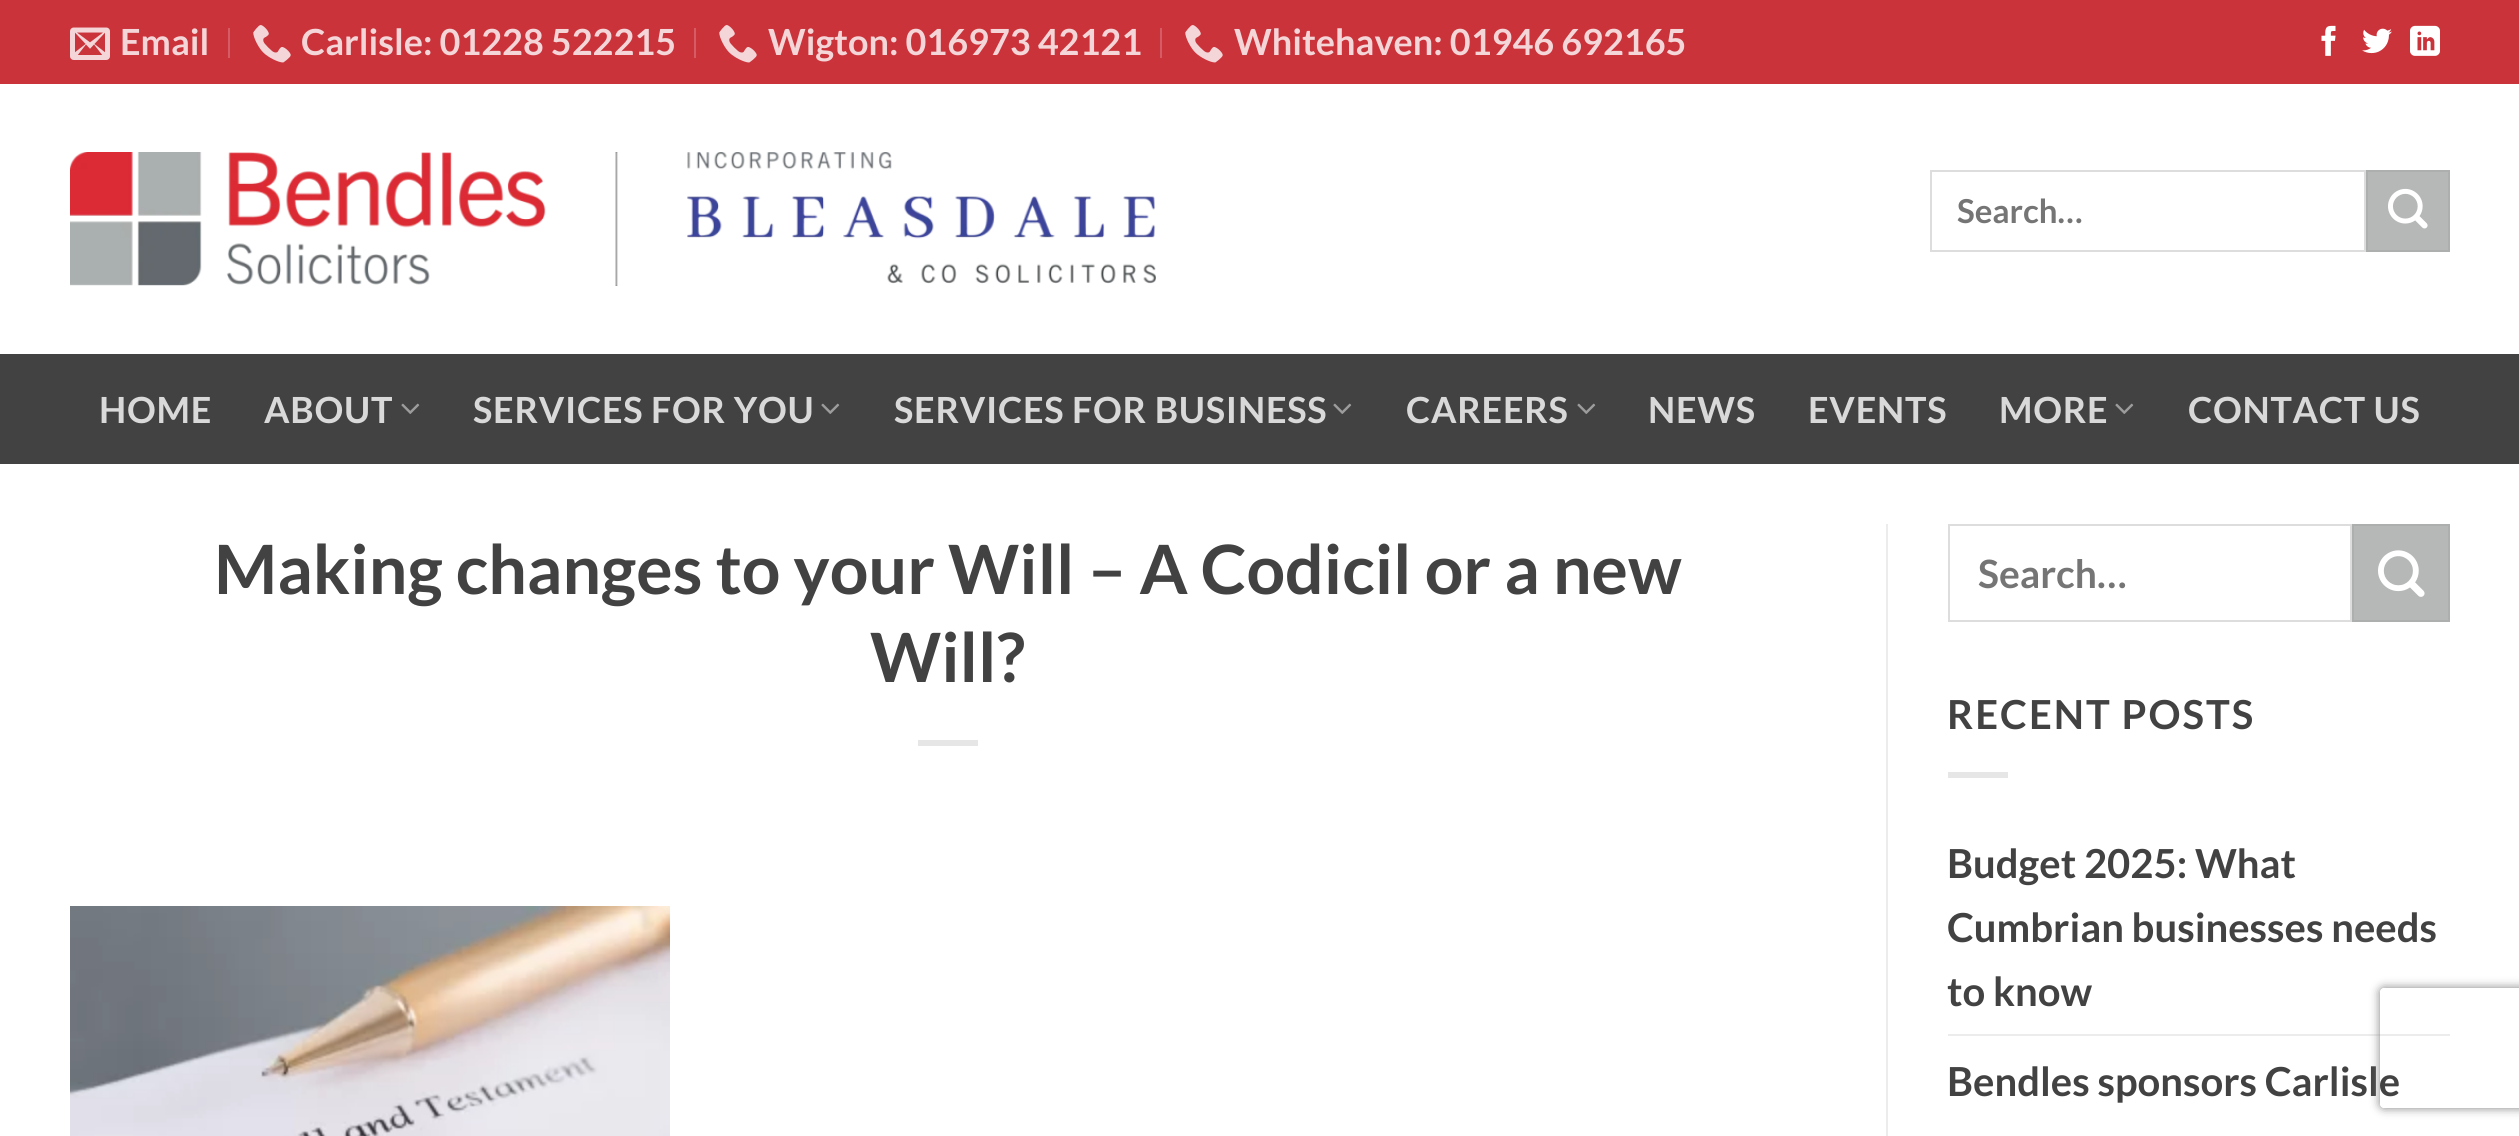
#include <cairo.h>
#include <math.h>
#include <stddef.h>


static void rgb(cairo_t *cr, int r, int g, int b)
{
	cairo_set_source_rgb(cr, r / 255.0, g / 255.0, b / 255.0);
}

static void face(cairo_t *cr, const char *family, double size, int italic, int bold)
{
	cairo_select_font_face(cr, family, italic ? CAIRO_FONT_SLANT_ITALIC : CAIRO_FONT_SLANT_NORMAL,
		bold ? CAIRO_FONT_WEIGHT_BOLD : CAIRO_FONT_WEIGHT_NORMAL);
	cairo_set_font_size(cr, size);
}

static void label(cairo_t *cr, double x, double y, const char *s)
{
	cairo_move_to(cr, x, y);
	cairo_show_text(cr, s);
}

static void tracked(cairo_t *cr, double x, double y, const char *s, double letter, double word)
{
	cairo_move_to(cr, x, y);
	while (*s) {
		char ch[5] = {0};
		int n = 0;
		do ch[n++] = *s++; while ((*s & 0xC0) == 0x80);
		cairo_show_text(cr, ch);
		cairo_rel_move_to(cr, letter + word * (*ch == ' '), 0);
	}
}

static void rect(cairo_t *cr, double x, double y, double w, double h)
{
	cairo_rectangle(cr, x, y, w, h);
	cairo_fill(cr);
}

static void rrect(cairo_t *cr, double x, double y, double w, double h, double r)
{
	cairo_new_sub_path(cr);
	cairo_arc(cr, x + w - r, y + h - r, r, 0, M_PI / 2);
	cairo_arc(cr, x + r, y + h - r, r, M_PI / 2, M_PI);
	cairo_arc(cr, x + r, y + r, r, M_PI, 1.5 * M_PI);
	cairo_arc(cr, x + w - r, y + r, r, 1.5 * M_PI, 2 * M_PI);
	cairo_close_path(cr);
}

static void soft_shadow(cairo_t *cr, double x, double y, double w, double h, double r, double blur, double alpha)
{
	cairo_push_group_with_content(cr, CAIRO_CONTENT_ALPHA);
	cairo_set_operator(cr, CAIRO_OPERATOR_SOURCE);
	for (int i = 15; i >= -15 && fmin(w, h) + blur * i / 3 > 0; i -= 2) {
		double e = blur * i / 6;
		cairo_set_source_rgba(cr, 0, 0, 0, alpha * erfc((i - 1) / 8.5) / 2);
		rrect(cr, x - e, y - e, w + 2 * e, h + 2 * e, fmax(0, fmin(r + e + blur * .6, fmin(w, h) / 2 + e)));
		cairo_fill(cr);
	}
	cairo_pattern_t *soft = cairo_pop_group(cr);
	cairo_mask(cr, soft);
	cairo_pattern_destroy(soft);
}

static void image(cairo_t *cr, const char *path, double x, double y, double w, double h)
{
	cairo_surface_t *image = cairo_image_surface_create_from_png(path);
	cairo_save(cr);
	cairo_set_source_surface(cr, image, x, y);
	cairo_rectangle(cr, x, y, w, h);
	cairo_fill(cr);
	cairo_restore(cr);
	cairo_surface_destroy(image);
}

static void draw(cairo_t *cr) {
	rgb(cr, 255, 255, 255);
	cairo_paint(cr);
	rgb(cr, 203, 51, 59);
	rect(cr, 0, 0, 2519, 84);
	image(cr, "image0.png", 70, 27, 40, 33);
	face(cr, "Lato", 36, 0, 1);
	rgb(cr, 245, 214, 216);
	label(cr, 120, 55, "Email");
	rgb(cr, 213, 92, 98);
	rect(cr, 228, 28, 2, 30);
	image(cr, "image1.png", 253, 25, 38, 38);
	rgb(cr, 245, 214, 216);
	label(cr, 301, 55, "Carlisle: 01228 522215");
	rgb(cr, 213, 92, 98);
	rect(cr, 694, 28, 2, 30);
	image(cr, "image1.png", 719, 25, 38, 38);
	rgb(cr, 245, 214, 216);
	label(cr, 768, 55, "Wigton: 016973 42121");
	rgb(cr, 213, 92, 98);
	rect(cr, 1160, 28, 2, 30);
	image(cr, "image1.png", 1185, 25, 38, 38);
	rgb(cr, 245, 214, 216);
	label(cr, 1234, 55, "Whitehaven: 01946 692165");
	image(cr, "image2.png", 2321, 25, 15, 31);
	image(cr, "image3.png", 2362, 28, 30, 26);
	image(cr, "image4.png", 2410, 25, 30, 31);
	image(cr, "image5.png", 70, 152, 1086, 134);
	cairo_rectangle(cr, 1931, 171, 434, 80);
	rgb(cr, 221, 221, 221);
	cairo_stroke(cr);
	face(cr, "Lato", 33, 0, 1);
	rgb(cr, 117, 117, 117);
	label(cr, 1957, 223, "Search…");
	rgb(cr, 182, 184, 183);
	cairo_rectangle(cr, 2367, 171, 82, 80);
	cairo_fill_preserve(cr);
	rgb(cr, 173, 175, 174);
	cairo_stroke(cr);
	image(cr, "image6.png", 2388, 188, 40, 41);
	rgb(cr, 66, 66, 66);
	rect(cr, 0, 354, 2519, 110);
	face(cr, "Lato", 36, 0, 1);
	rgb(cr, 217, 217, 217);
	tracked(cr, 99, 423, "HOME", 0.75, 0);
	tracked(cr, 264, 423, "ABOUT", 0.75, 0);
	image(cr, "image7.png", 401, 403, 19, 11);
	tracked(cr, 473, 423, "SERVICES FOR YOU", 0.75, 0);
	image(cr, "image7.png", 821, 403, 19, 11);
	tracked(cr, 894, 423, "SERVICES FOR BUSINESS", 0.75, 0);
	image(cr, "image7.png", 1333, 403, 19, 11);
	tracked(cr, 1406, 423, "CAREERS", 0.75, 0);
	image(cr, "image7.png", 1577, 403, 19, 11);
	tracked(cr, 1648, 423, "NEWS", 0.75, 0);
	tracked(cr, 1808, 423, "EVENTS", 0.75, 0);
	tracked(cr, 1999, 423, "MORE", 0.75, 0);
	image(cr, "image7.png", 2115, 403, 19, 11);
	tracked(cr, 2188, 423, "CONTACT US", 0.75, 0);
	face(cr, "Lato", 68, 0, 1);
	rgb(cr, 66, 66, 66);
	label(cr, 214, 594, "Making changes to your Will – A Codicil or a new");
	label(cr, 870, 682, "Will?");
	rgb(cr, 230, 230, 230);
	rect(cr, 918, 740, 60, 6);
	image(cr, "image8.png", 70, 906, 600, 230);
	rgb(cr, 236, 236, 236);
	rect(cr, 1886, 524, 2, 612);
	cairo_rectangle(cr, 1949, 525, 402, 96);
	rgb(cr, 221, 221, 221);
	cairo_stroke(cr);
	face(cr, "Lato", 39, 0, 1);
	rgb(cr, 117, 117, 117);
	label(cr, 1978, 588, "Search…");
	rgb(cr, 182, 184, 183);
	cairo_rectangle(cr, 2353, 525, 96, 96);
	cairo_fill_preserve(cr);
	rgb(cr, 173, 175, 174);
	cairo_stroke(cr);
	image(cr, "image9.png", 2378, 550, 47, 47);
	face(cr, "Lato", 40, 0, 1);
	rgb(cr, 66, 66, 66);
	tracked(cr, 1947, 729, "RECENT POSTS", 2, 0);
	rgb(cr, 230, 230, 230);
	rect(cr, 1948, 772, 60, 6);
	rgb(cr, 66, 66, 66);
	label(cr, 1947, 878, "Budget 2025: What");
	label(cr, 1947, 942, "Cumbrian businesses needs");
	label(cr, 1947, 1006, "to know");
	rgb(cr, 236, 236, 236);
	rect(cr, 1948, 1034, 502, 2);
	rgb(cr, 66, 66, 66);
	label(cr, 1947, 1096, "Bendles sponsors Carlisle");
	cairo_save(cr);
	cairo_set_fill_rule(cr, CAIRO_FILL_RULE_EVEN_ODD);
	cairo_new_path(cr);
	cairo_move_to(cr, 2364, 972);
	cairo_line_to(cr, 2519, 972);
	cairo_line_to(cr, 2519, 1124);
	cairo_line_to(cr, 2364, 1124);
	cairo_close_path(cr);
	cairo_move_to(cr, 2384, 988);
	cairo_line_to(cr, 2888, 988);
	cairo_curve_to(cr, 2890, 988, 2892, 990, 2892, 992);
	cairo_line_to(cr, 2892, 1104);
	cairo_curve_to(cr, 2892, 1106, 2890, 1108, 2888, 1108);
	cairo_line_to(cr, 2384, 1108);
	cairo_curve_to(cr, 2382, 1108, 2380, 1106, 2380, 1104);
	cairo_line_to(cr, 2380, 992);
	cairo_curve_to(cr, 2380, 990, 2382, 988, 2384, 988);
	cairo_close_path(cr);
	cairo_clip(cr);
	rgb(cr, 128, 128, 128);
	soft_shadow(cr, 2380, 988, 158, 120, 4, 5, 1);
	cairo_restore(cr);
}

int main(void) {
	cairo_surface_t *surface = cairo_image_surface_create(CAIRO_FORMAT_RGB24, 2519, 1136);
	cairo_t *cr = cairo_create(surface);
	cairo_font_options_t *options = cairo_font_options_create();
	cairo_font_options_set_hint_metrics(options, CAIRO_HINT_METRICS_OFF);
	cairo_font_options_set_hint_style(options, CAIRO_HINT_STYLE_NONE);
	cairo_set_font_options(cr, options);
	cairo_set_miter_limit(cr, 4);
	draw(cr);
	cairo_surface_write_to_png(surface, "render.png");
	cairo_font_options_destroy(options);
	cairo_destroy(cr);
	cairo_surface_destroy(surface);
	return 0;
}
